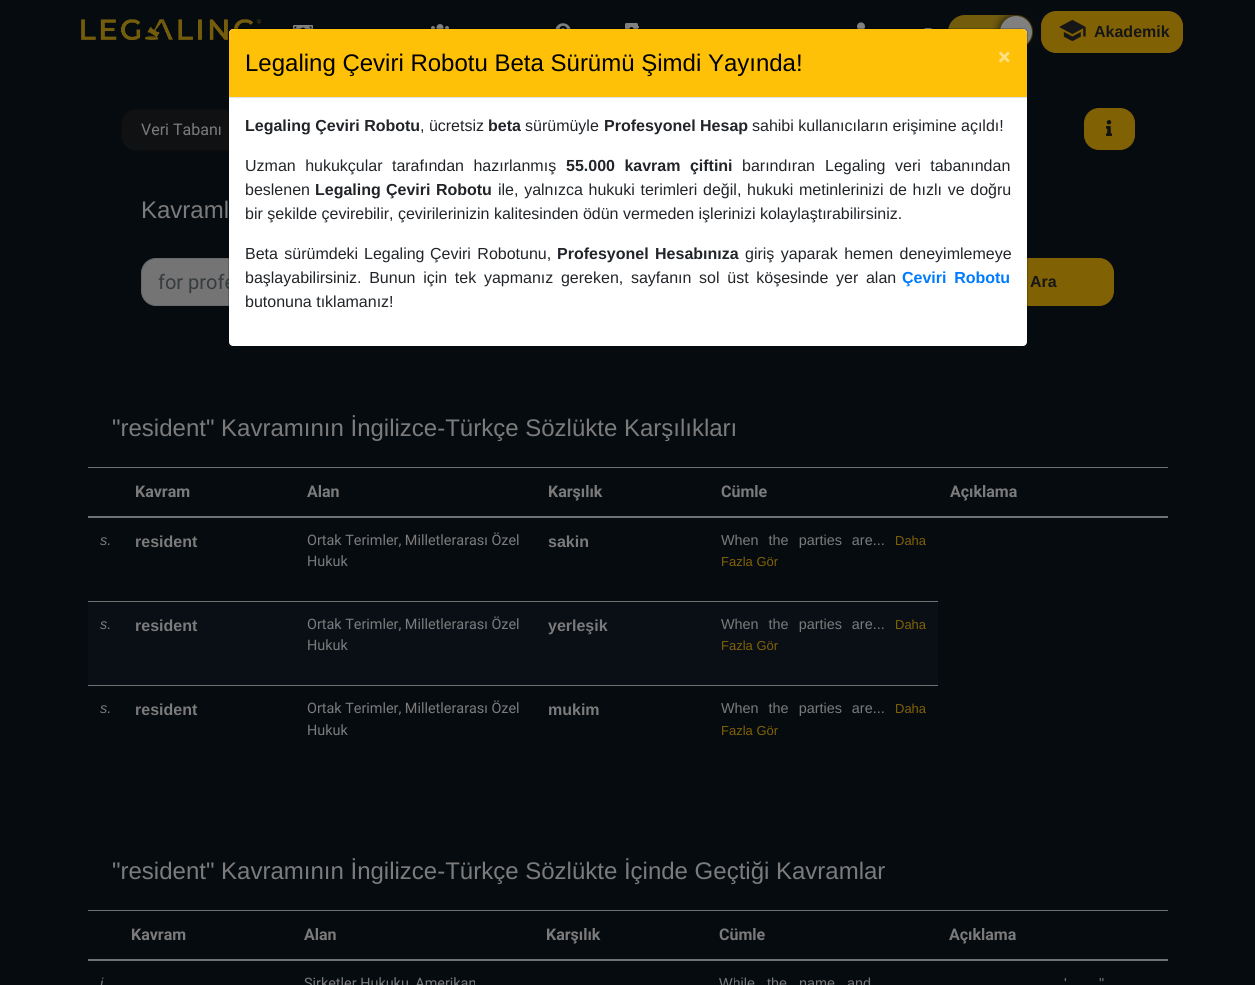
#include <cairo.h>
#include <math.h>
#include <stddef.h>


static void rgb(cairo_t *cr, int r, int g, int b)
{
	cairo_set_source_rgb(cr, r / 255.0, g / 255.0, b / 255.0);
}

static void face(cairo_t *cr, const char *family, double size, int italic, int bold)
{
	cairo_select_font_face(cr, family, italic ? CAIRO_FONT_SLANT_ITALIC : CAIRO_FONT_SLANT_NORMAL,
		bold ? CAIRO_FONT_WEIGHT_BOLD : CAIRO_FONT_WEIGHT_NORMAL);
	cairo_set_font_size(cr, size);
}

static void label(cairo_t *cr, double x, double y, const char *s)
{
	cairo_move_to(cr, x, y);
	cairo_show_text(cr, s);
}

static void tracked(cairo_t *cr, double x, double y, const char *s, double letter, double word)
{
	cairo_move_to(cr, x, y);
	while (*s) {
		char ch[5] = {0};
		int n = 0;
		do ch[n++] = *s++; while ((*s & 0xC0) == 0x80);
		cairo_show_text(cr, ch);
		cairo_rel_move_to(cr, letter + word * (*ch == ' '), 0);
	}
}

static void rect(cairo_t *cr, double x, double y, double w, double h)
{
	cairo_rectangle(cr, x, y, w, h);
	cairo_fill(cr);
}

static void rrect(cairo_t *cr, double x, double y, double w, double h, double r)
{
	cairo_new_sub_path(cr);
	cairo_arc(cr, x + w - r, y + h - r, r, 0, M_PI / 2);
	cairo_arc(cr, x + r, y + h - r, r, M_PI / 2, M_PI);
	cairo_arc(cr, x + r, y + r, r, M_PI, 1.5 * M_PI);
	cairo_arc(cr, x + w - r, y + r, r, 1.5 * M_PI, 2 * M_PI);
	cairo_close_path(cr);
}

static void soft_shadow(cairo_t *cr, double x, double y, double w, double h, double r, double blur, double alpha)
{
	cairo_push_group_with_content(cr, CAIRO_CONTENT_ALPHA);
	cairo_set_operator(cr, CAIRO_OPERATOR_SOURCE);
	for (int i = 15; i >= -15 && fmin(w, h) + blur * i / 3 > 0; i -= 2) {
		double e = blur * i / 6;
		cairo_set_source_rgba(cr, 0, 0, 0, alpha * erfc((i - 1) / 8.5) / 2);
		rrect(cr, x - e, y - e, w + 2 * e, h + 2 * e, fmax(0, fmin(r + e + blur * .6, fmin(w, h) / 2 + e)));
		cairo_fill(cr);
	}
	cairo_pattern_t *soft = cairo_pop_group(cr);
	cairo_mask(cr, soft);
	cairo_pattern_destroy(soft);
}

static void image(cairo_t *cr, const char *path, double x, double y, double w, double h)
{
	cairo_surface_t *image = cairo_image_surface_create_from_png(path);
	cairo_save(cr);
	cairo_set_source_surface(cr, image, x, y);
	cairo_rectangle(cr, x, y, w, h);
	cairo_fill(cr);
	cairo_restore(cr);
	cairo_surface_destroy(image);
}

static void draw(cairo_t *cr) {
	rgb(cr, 6, 11, 15);
	cairo_paint(cr);
	image(cr, "image0.png", 81, 19, 180, 21);
	image(cr, "image1.png", 293, 25, 20, 4);
	image(cr, "image2.png", 431, 24, 18, 5);
	image(cr, "image3.png", 555, 23, 16, 6);
	image(cr, "image4.png", 625, 23, 14, 6);
	image(cr, "image5.png", 857, 22, 8, 7);
	rgb(cr, 128, 128, 128);
	cairo_new_path(cr);
	cairo_move_to(cr, 924, 28);
	cairo_line_to(cr, 932, 28);
	cairo_line_to(cr, 928, 32);
	cairo_close_path(cr);
	cairo_fill(cr);
	rgb(cr, 115, 93, 13);
	rrect(cr, 948, 15, 85, 34, 17);
	cairo_fill(cr);
	rgb(cr, 128, 97, 4);
	rrect(cr, 1041.5, 11.5, 141, 41, 14.5);
	cairo_fill_preserve(cr);
	cairo_set_line_width(cr, 1);
	cairo_stroke(cr);
	rgb(cr, 16, 16, 16);
	soft_shadow(cr, 1000, 16, 32, 32, 16, 5, 1);
	rgb(cr, 128, 128, 128);
	cairo_arc(cr, 1016, 32, 16, 0, 2 * M_PI);
	cairo_fill(cr);
	image(cr, "image6.png", 1059, 19, 27, 23);
	face(cr, "Liberation Sans", 16, 0, 1);
	rgb(cr, 22, 22, 22);
	label(cr, 1094, 37, "Akademik");
	rgb(cr, 15, 17, 18);
	cairo_new_path(cr);
	cairo_move_to(cr, 136, 109.5);
	cairo_line_to(cr, 242.5, 109.5);
	cairo_line_to(cr, 242.5, 150.5);
	cairo_line_to(cr, 136, 150.5);
	cairo_curve_to(cr, 128, 150.5, 121.5, 144, 121.5, 136);
	cairo_line_to(cr, 121.5, 124);
	cairo_curve_to(cr, 121.5, 116, 128, 109.5, 136, 109.5);
	cairo_close_path(cr);
	cairo_fill_preserve(cr);
	rgb(cr, 12, 13, 15);
	cairo_stroke(cr);
	rgb(cr, 116, 116, 116);
	cairo_new_path(cr);
	cairo_move_to(cr, 156, 258.5);
	cairo_line_to(cr, 789.5, 258.5);
	cairo_line_to(cr, 789.5, 305.5);
	cairo_line_to(cr, 156, 305.5);
	cairo_curve_to(cr, 148, 305.5, 141.5, 299, 141.5, 291);
	cairo_line_to(cr, 141.5, 273);
	cairo_curve_to(cr, 141.5, 265, 148, 258.5, 156, 258.5);
	cairo_close_path(cr);
	cairo_fill_preserve(cr);
	rgb(cr, 103, 106, 109);
	cairo_stroke(cr);
	face(cr, "Roboto", 20, 0, 0);
	rgb(cr, 54, 59, 63);
	label(cr, 158, 289, "for profe");
	rgb(cr, 128, 97, 4);
	cairo_new_path(cr);
	cairo_move_to(cr, 952.5, 258.5);
	cairo_line_to(cr, 1099, 258.5);
	cairo_curve_to(cr, 1107, 258.5, 1113.5, 265, 1113.5, 273);
	cairo_line_to(cr, 1113.5, 291);
	cairo_curve_to(cr, 1113.5, 299, 1107, 305.5, 1099, 305.5);
	cairo_line_to(cr, 952.5, 305.5);
	cairo_close_path(cr);
	cairo_fill_preserve(cr);
	cairo_stroke(cr);
	rgb(cr, 255, 255, 255);
	rrect(cr, 229, 29, 798, 317, 4);
	cairo_fill(cr);
	rrect(cr, 228.5, 28.5, 799, 318, 4.5);
	cairo_set_source_rgba(cr, 0, 0, 0, 0.2);
	cairo_stroke(cr);
	rgb(cr, 255, 193, 7);
	cairo_new_path(cr);
	cairo_move_to(cr, 234, 29);
	cairo_line_to(cr, 1022, 29);
	cairo_curve_to(cr, 1025, 29, 1027, 31, 1027, 34);
	cairo_line_to(cr, 1027, 98);
	cairo_line_to(cr, 229, 98);
	cairo_line_to(cr, 229, 34);
	cairo_curve_to(cr, 229, 31, 231, 29, 234, 29);
	cairo_close_path(cr);
	cairo_fill(cr);
	rgb(cr, 222, 226, 230);
	rect(cr, 229, 97, 798, 1);
	face(cr, "Liberation Sans", 24, 0, 0);
	rgb(cr, 0, 0, 0);
	label(cr, 245, 71, "Legaling Çeviri Robotu Beta Sürümü Şimdi Yayında!");
	face(cr, "Roboto", 24, 0, 1);
	rgb(cr, 255, 224, 131);
	label(cr, 998, 65, "×");
	face(cr, "Liberation Sans", 16, 0, 1);
	rgb(cr, 33, 37, 41);
	label(cr, 245, 131, "Legaling Çeviri Robotu");
	face(cr, "Liberation Sans", 16, 0, 0);
	label(cr, 420, 131, ", ücretsiz");
	face(cr, "Liberation Sans", 16, 0, 1);
	label(cr, 488, 131, "beta");
	face(cr, "Liberation Sans", 16, 0, 0);
	label(cr, 525, 131, "sürümüyle");
	face(cr, "Liberation Sans", 16, 0, 1);
	label(cr, 604, 131, "Profesyonel Hesap");
	face(cr, "Liberation Sans", 16, 0, 0);
	label(cr, 752, 131, "sahibi kullanıcıların erişimine açıldı!");
	tracked(cr, 245, 171, "Uzman hukukçular tarafından hazırlanmış", 0, 5);
	face(cr, "Liberation Sans", 16, 0, 1);
	tracked(cr, 566, 171, "55.000 kavram çiftini", 0, 5);
	face(cr, "Liberation Sans", 16, 0, 0);
	label(cr, 742, 171, "barındıran");
	label(cr, 825, 171, "Legaling");
	tracked(cr, 895, 171, "veri tabanından", 0, 5);
	label(cr, 245, 195, "beslenen");
	face(cr, "Liberation Sans", 16, 0, 1);
	label(cr, 315, 195, "Legaling");
	tracked(cr, 386, 195, "Çeviri Robotu", 0, 1);
	face(cr, "Liberation Sans", 16, 0, 0);
	tracked(cr, 498, 195, "ile, yalnızca hukuki terimleri değil, hukuki metinlerinizi de hızlı ve doğru", 0, 1.25);
	label(cr, 245, 219, "bir şekilde çevirebilir, çevirilerinizin kalitesinden ödün vermeden işlerinizi kolaylaştırabilirsiniz.");
	tracked(cr, 245, 259, "Beta sürümdeki", 0, 2);
	label(cr, 364, 259, "Legaling");
	tracked(cr, 430, 259, "Çeviri Robotunu,", 0, 2);
	face(cr, "Liberation Sans", 16, 0, 1);
	tracked(cr, 557, 259, "Profesyonel Hesabınıza", 0, 2);
	face(cr, "Liberation Sans", 16, 0, 0);
	tracked(cr, 745, 259, "giriş yaparak hemen deneyimlemeye", 0, 2);
	tracked(cr, 245, 283, "başlayabilirsiniz. Bunun için tek yapmanız gereken, sayfanın sol üst köşesinde yer alan", 0, 3.25);
	face(cr, "Liberation Sans", 16, 0, 1);
	rgb(cr, 0, 123, 255);
	tracked(cr, 902, 283, "Çeviri Robotu", 0, 3.25);
	face(cr, "Liberation Sans", 16, 0, 0);
	rgb(cr, 33, 37, 41);
	label(cr, 245, 307, "butonuna tıklamanız!");
	face(cr, "Roboto", 16, 0, 0);
	rgb(cr, 123, 123, 124);
	label(cr, 141, 135, "Veri Tabanı");
	rgb(cr, 128, 97, 4);
	rrect(cr, 1084.5, 108.5, 50, 41, 14.5);
	cairo_fill_preserve(cr);
	cairo_stroke(cr);
	image(cr, "image7.png", 1106, 120, 6, 16);
	face(cr, "Liberation Sans", 24, 0, 0);
	rgb(cr, 123, 123, 124);
	label(cr, 141, 218, "Kavraml");
	face(cr, "Liberation Sans", 16, 0, 1);
	rgb(cr, 22, 22, 22);
	label(cr, 1030, 287, "Ara");
	face(cr, "Liberation Sans", 24, 0, 0);
	rgb(cr, 123, 123, 124);
	label(cr, 112, 436, "\"resident\" Kavramının İngilizce-Türkçe Sözlükte Karşılıkları");
	face(cr, "Roboto", 16, 0, 1);
	label(cr, 135, 497, "Kavram");
	label(cr, 307, 497, "Alan");
	label(cr, 548, 497, "Karşılık");
	label(cr, 721, 497, "Cümle");
	rgb(cr, 111, 113, 115);
	rect(cr, 88, 467, 1080, 1);
	rect(cr, 88, 516, 1080, 2);
	rgb(cr, 123, 123, 124);
	label(cr, 950, 497, "Açıklama");
	face(cr, "Liberation Sans", 14.4, 1, 0);
	label(cr, 100, 545, "s.");
	face(cr, "Liberation Sans", 16, 0, 1);
	label(cr, 135, 547, "resident");
	face(cr, "Roboto", 14.4, 0, 0);
	label(cr, 307, 545, "Ortak Terimler, Milletlerarası Özel");
	label(cr, 307, 566, "Hukuk");
	face(cr, "Liberation Sans", 16, 0, 1);
	label(cr, 548, 547, "sakin");
	face(cr, "Liberation Sans", 14.4, 0, 0);
	tracked(cr, 721, 545, "When the parties are...", 0, 6);
	face(cr, "Liberation Sans", 13, 0, 0);
	rgb(cr, 128, 97, 4);
	label(cr, 895, 545, "Daha");
	label(cr, 721, 566, "Fazla Gör");
	rgb(cr, 9, 15, 21);
	rect(cr, 88, 602, 850, 83);
	face(cr, "Liberation Sans", 14.4, 1, 0);
	rgb(cr, 123, 123, 124);
	label(cr, 100, 629, "s.");
	face(cr, "Liberation Sans", 16, 0, 1);
	label(cr, 135, 631, "resident");
	face(cr, "Roboto", 14.4, 0, 0);
	label(cr, 307, 629, "Ortak Terimler, Milletlerarası Özel");
	label(cr, 307, 650, "Hukuk");
	face(cr, "Liberation Sans", 16, 0, 1);
	label(cr, 548, 631, "yerleşik");
	rgb(cr, 111, 113, 115);
	rect(cr, 88, 601, 850, 1);
	face(cr, "Liberation Sans", 14.4, 0, 0);
	rgb(cr, 123, 123, 124);
	tracked(cr, 721, 629, "When the parties are...", 0, 6);
	face(cr, "Liberation Sans", 13, 0, 0);
	rgb(cr, 128, 97, 4);
	label(cr, 895, 629, "Daha");
	label(cr, 721, 650, "Fazla Gör");
	face(cr, "Liberation Sans", 14.4, 1, 0);
	rgb(cr, 123, 123, 124);
	label(cr, 100, 713, "s.");
	face(cr, "Liberation Sans", 16, 0, 1);
	label(cr, 135, 715, "resident");
	face(cr, "Roboto", 14.4, 0, 0);
	label(cr, 307, 713, "Ortak Terimler, Milletlerarası Özel");
	label(cr, 307, 735, "Hukuk");
	face(cr, "Liberation Sans", 16, 0, 1);
	label(cr, 548, 715, "mukim");
	rgb(cr, 111, 113, 115);
	rect(cr, 88, 685, 850, 1);
	face(cr, "Liberation Sans", 14.4, 0, 0);
	rgb(cr, 123, 123, 124);
	tracked(cr, 721, 713, "When the parties are...", 0, 6);
	face(cr, "Liberation Sans", 13, 0, 0);
	rgb(cr, 128, 97, 4);
	label(cr, 895, 713, "Daha");
	label(cr, 721, 735, "Fazla Gör");
	face(cr, "Liberation Sans", 24, 0, 0);
	rgb(cr, 123, 123, 124);
	label(cr, 112, 879, "\"resident\" Kavramının İngilizce-Türkçe Sözlükte İçinde Geçtiği Kavramlar");
	face(cr, "Roboto", 16, 0, 1);
	label(cr, 131, 940, "Kavram");
	label(cr, 304, 940, "Alan");
	label(cr, 546, 940, "Karşılık");
	label(cr, 719, 940, "Cümle");
	rgb(cr, 111, 113, 115);
	rect(cr, 88, 910, 1080, 1);
	rect(cr, 88, 959, 1080, 2);
	rgb(cr, 123, 123, 124);
	label(cr, 949, 940, "Açıklama");
	face(cr, "Liberation Sans", 14.4, 1, 0);
	label(cr, 100, 988, "i");
	face(cr, "Roboto", 14.4, 0, 0);
	label(cr, 304, 988, "Şirketler Hukuku, Amerikan");
	face(cr, "Liberation Sans", 14.4, 0, 0);
	tracked(cr, 719, 988, "While the name and", 0, 8);
	tracked(cr, 1064, 988, "'", 0, 1);
	tracked(cr, 1099, 988, "\"", 0, 1);
}

int main(void) {
	cairo_surface_t *surface = cairo_image_surface_create(CAIRO_FORMAT_RGB24, 1255, 985);
	cairo_t *cr = cairo_create(surface);
	cairo_font_options_t *options = cairo_font_options_create();
	cairo_font_options_set_hint_metrics(options, CAIRO_HINT_METRICS_OFF);
	cairo_font_options_set_hint_style(options, CAIRO_HINT_STYLE_NONE);
	cairo_set_font_options(cr, options);
	cairo_set_miter_limit(cr, 4);
	draw(cr);
	cairo_surface_write_to_png(surface, "render.png");
	cairo_font_options_destroy(options);
	cairo_destroy(cr);
	cairo_surface_destroy(surface);
	return 0;
}
